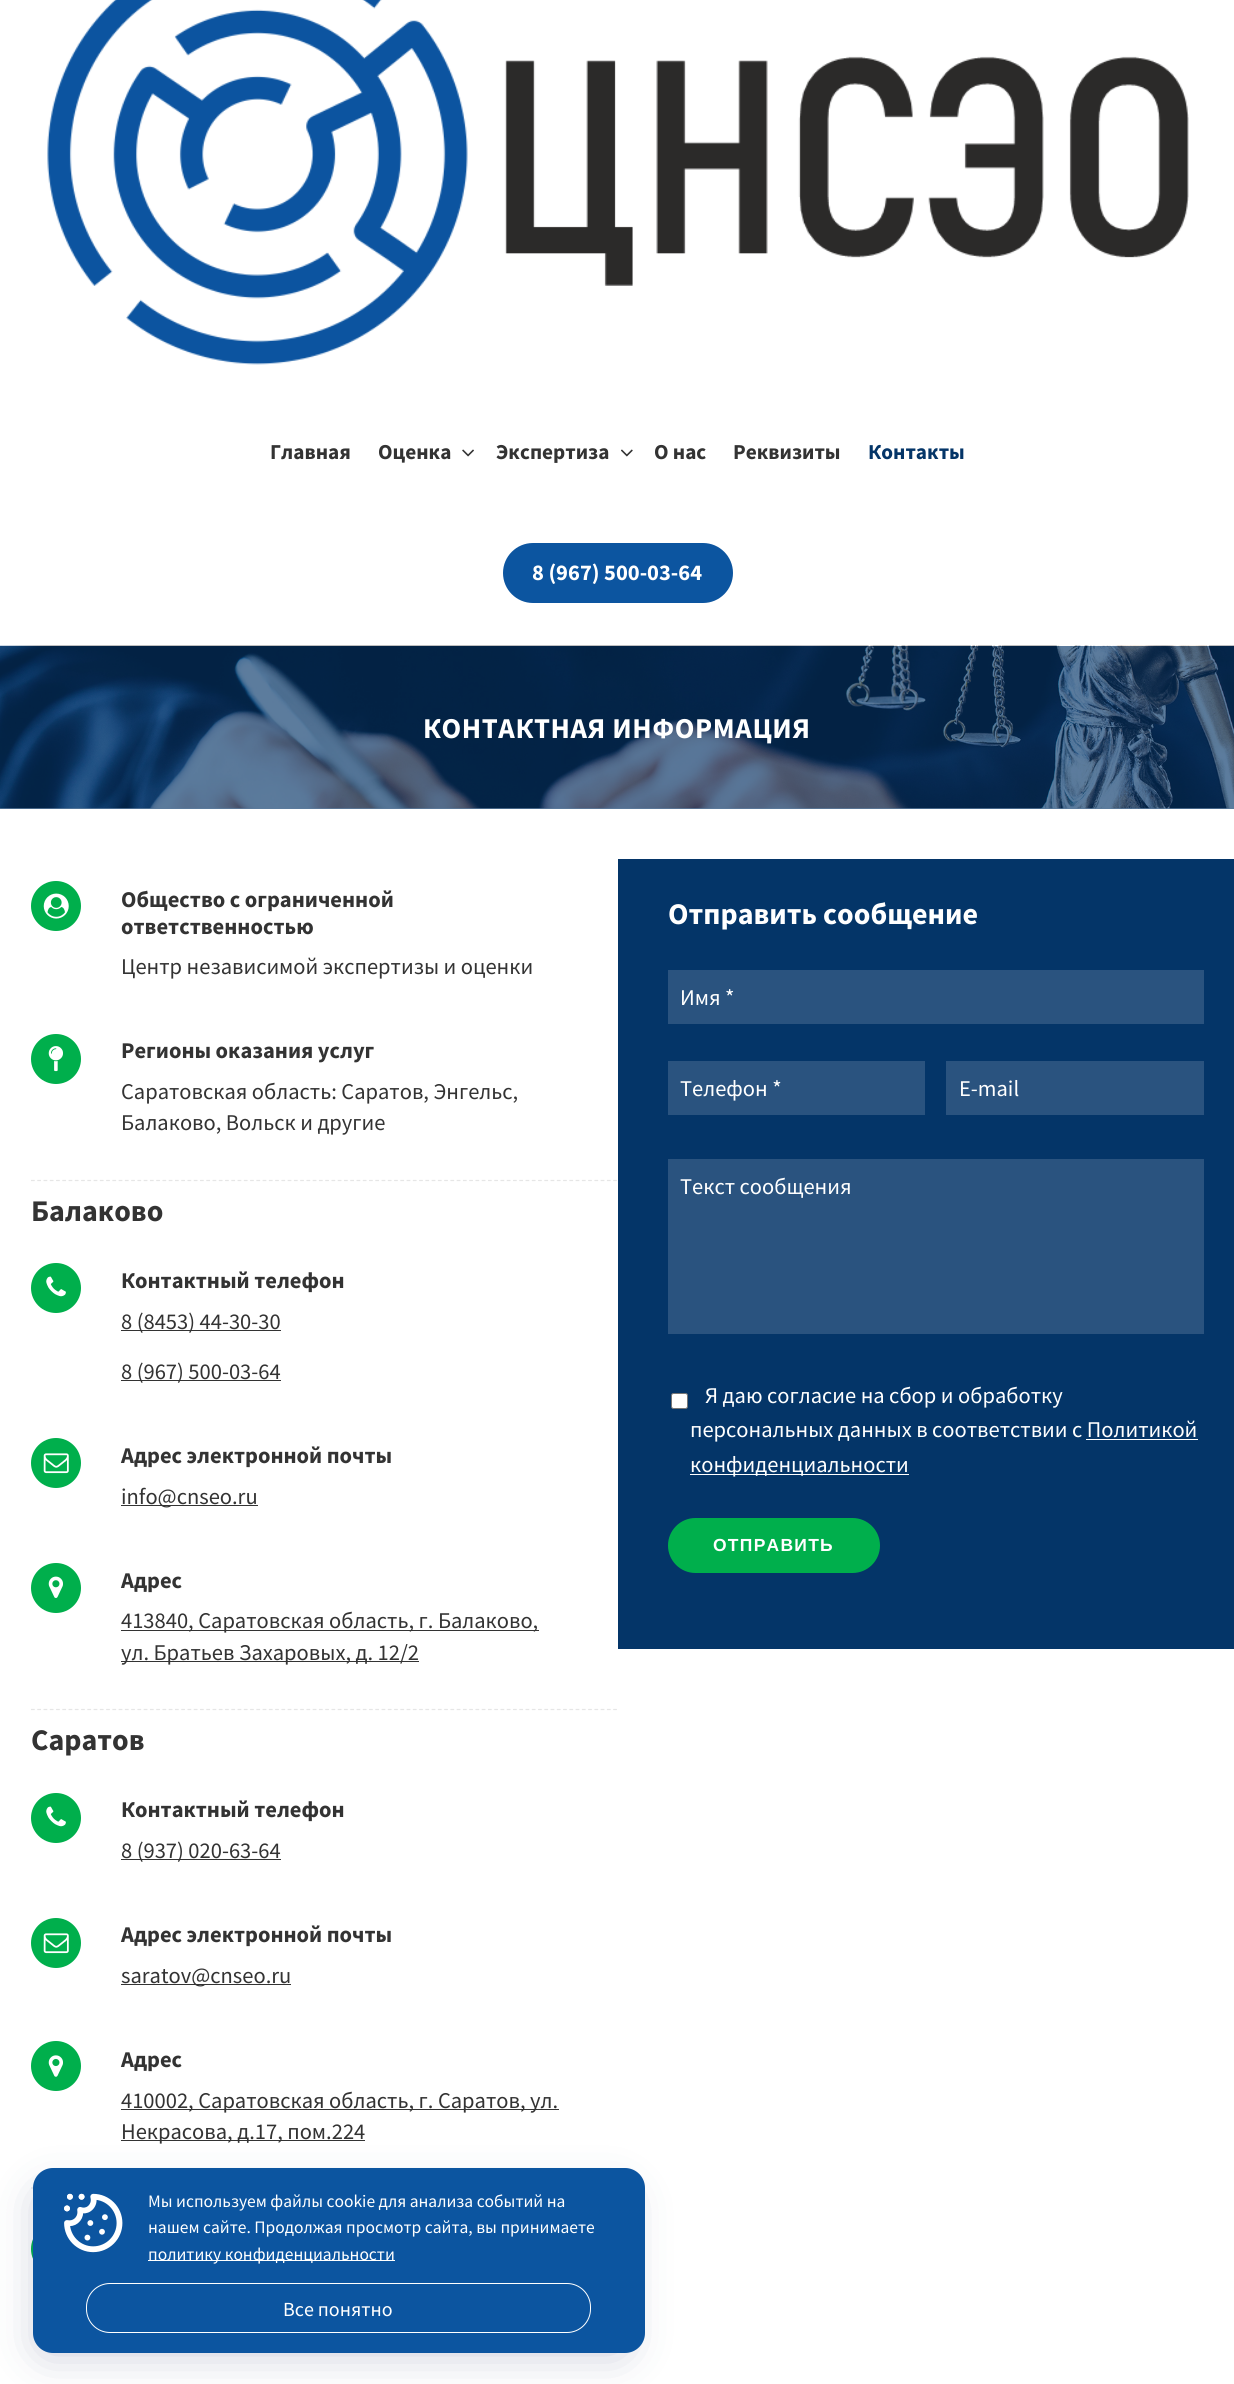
#include <cairo.h>
#include <math.h>
#include <stddef.h>


static void rgb(cairo_t *cr, int r, int g, int b)
{
	cairo_set_source_rgb(cr, r / 255.0, g / 255.0, b / 255.0);
}

static void face(cairo_t *cr, const char *family, double size, int italic, int bold)
{
	cairo_select_font_face(cr, family, italic ? CAIRO_FONT_SLANT_ITALIC : CAIRO_FONT_SLANT_NORMAL,
		bold ? CAIRO_FONT_WEIGHT_BOLD : CAIRO_FONT_WEIGHT_NORMAL);
	cairo_set_font_size(cr, size);
}

static void label(cairo_t *cr, double x, double y, const char *s)
{
	cairo_move_to(cr, x, y);
	cairo_show_text(cr, s);
}

static void tracked(cairo_t *cr, double x, double y, const char *s, double letter, double word)
{
	cairo_move_to(cr, x, y);
	while (*s) {
		char ch[5] = {0};
		int n = 0;
		do ch[n++] = *s++; while ((*s & 0xC0) == 0x80);
		cairo_show_text(cr, ch);
		cairo_rel_move_to(cr, letter + word * (*ch == ' '), 0);
	}
}

static void rect(cairo_t *cr, double x, double y, double w, double h)
{
	cairo_rectangle(cr, x, y, w, h);
	cairo_fill(cr);
}

static void rrect(cairo_t *cr, double x, double y, double w, double h, double r)
{
	cairo_new_sub_path(cr);
	cairo_arc(cr, x + w - r, y + h - r, r, 0, M_PI / 2);
	cairo_arc(cr, x + r, y + h - r, r, M_PI / 2, M_PI);
	cairo_arc(cr, x + r, y + r, r, M_PI, 1.5 * M_PI);
	cairo_arc(cr, x + w - r, y + r, r, 1.5 * M_PI, 2 * M_PI);
	cairo_close_path(cr);
}

static void soft_shadow(cairo_t *cr, double x, double y, double w, double h, double r, double blur, double alpha)
{
	cairo_push_group_with_content(cr, CAIRO_CONTENT_ALPHA);
	cairo_set_operator(cr, CAIRO_OPERATOR_SOURCE);
	for (int i = 15; i >= -15 && fmin(w, h) + blur * i / 3 > 0; i -= 2) {
		double e = blur * i / 6;
		cairo_set_source_rgba(cr, 0, 0, 0, alpha * erfc((i - 1) / 8.5) / 2);
		rrect(cr, x - e, y - e, w + 2 * e, h + 2 * e, fmax(0, fmin(r + e + blur * .6, fmin(w, h) / 2 + e)));
		cairo_fill(cr);
	}
	cairo_pattern_t *soft = cairo_pop_group(cr);
	cairo_mask(cr, soft);
	cairo_pattern_destroy(soft);
}

static void image(cairo_t *cr, const char *path, double x, double y, double w, double h)
{
	cairo_surface_t *image = cairo_image_surface_create_from_png(path);
	cairo_save(cr);
	cairo_set_source_surface(cr, image, x, y);
	cairo_rectangle(cr, x, y, w, h);
	cairo_fill(cr);
	cairo_restore(cr);
	cairo_surface_destroy(image);
}

static void draw(cairo_t *cr) {
	rgb(cr, 255, 255, 255);
	cairo_paint(cr);
	rgb(cr, 92, 124, 157);
	rect(cr, 0, 808, 1234, 1);
	image(cr, "image0.png", 47, 0, 1142, 365);
	face(cr, "Source Sans Pro", 21.25, 0, 1);
	rgb(cr, 51, 51, 51);
	label(cr, 270, 459, "Главная");
	label(cr, 378, 459, "Оценка");
	image(cr, "image1.png", 462, 449, 12, 8);
	label(cr, 496, 459, "Экспертиза");
	image(cr, "image2.png", 621, 449, 12, 8);
	label(cr, 654, 459, "О нас");
	label(cr, 733, 459, "Реквизиты");
	rgb(cr, 4, 53, 104);
	label(cr, 868, 459, "Контакты");
	rgb(cr, 12, 85, 160);
	rrect(cr, 503, 543, 230, 60, 30);
	cairo_fill(cr);
	face(cr, "Source Sans Pro", 22.5, 0, 1);
	rgb(cr, 255, 255, 255);
	label(cr, 532, 580, "8 (967) 500-03-64");
	image(cr, "image3.png", 0, 645, 1234, 164);
	face(cr, "Source Sans Pro", 28.75, 0, 1);
	tracked(cr, 423, 738, "КОНТАКТНАЯ ИНФОРМАЦИЯ", 0.6, 0);
	rgb(cr, 0, 175, 76);
	cairo_new_path(cr);
	cairo_arc(cr, 56, 906, 25, 0, 2 * M_PI);
	cairo_fill(cr);
	image(cr, "image4.png", 43, 893, 26, 26);
	face(cr, "Source Sans Pro", 22.5, 0, 1);
	rgb(cr, 51, 51, 51);
	label(cr, 121, 907, "Общество с ограниченной");
	label(cr, 121, 934, "ответственностью");
	face(cr, "Source Sans Pro", 22.5, 0, 0);
	label(cr, 121, 974, "Центр независимой экспертизы и оценки");
	rgb(cr, 0, 175, 76);
	cairo_new_path(cr);
	cairo_arc(cr, 56, 1059, 25, 0, 2 * M_PI);
	cairo_fill(cr);
	image(cr, "image5.png", 48, 1046, 15, 26);
	face(cr, "Source Sans Pro", 22.5, 0, 1);
	rgb(cr, 51, 51, 51);
	label(cr, 121, 1058, "Регионы оказания услуг");
	face(cr, "Source Sans Pro", 22.5, 0, 0);
	label(cr, 121, 1099, "Саратовская область: Саратов, Энгельс,");
	label(cr, 121, 1130, "Балаково, Вольск и другие");
	cairo_new_path(cr);
	cairo_move_to(cr, 31, 1180.5);
	cairo_line_to(cr, 617.5, 1180.5);
	rgb(cr, 230, 230, 230);
	cairo_set_line_width(cr, 1.2);
	cairo_set_dash(cr, (double[]){3.75, 2.51}, 2, 0);
	cairo_stroke(cr);
	face(cr, "Source Sans Pro", 30, 0, 1);
	rgb(cr, 51, 51, 51);
	label(cr, 31, 1221, "Балаково");
	rgb(cr, 0, 175, 76);
	cairo_new_path(cr);
	cairo_arc(cr, 56, 1288, 25, 0, 2 * M_PI);
	cairo_fill(cr);
	image(cr, "image6.png", 46, 1276, 20, 21);
	face(cr, "Source Sans Pro", 22.5, 0, 1);
	rgb(cr, 51, 51, 51);
	label(cr, 121, 1288, "Контактный телефон");
	rect(cr, 121, 1330, 160, 1);
	face(cr, "Source Sans Pro", 22.5, 0, 0);
	label(cr, 121, 1329, "8 (8453) 44-30-30");
	rect(cr, 121, 1380, 160, 1);
	label(cr, 121, 1379, "8 (967) 500-03-64");
	rgb(cr, 0, 175, 76);
	cairo_new_path(cr);
	cairo_arc(cr, 56, 1463, 25, 0, 2 * M_PI);
	cairo_fill(cr);
	image(cr, "image7.png", 43, 1453, 26, 21);
	face(cr, "Source Sans Pro", 22.5, 0, 1);
	rgb(cr, 51, 51, 51);
	label(cr, 121, 1463, "Адрес электронной почты");
	rect(cr, 121, 1505, 137, 1);
	face(cr, "Source Sans Pro", 22.5, 0, 0);
	label(cr, 121, 1504, "info@cnseo.ru");
	rgb(cr, 0, 175, 76);
	cairo_new_path(cr);
	cairo_arc(cr, 56, 1588, 25, 0, 2 * M_PI);
	cairo_fill(cr);
	image(cr, "image8.png", 48, 1576, 15, 22);
	face(cr, "Source Sans Pro", 22.5, 0, 1);
	rgb(cr, 51, 51, 51);
	label(cr, 121, 1588, "Адрес");
	rect(cr, 121, 1630, 418, 1);
	face(cr, "Source Sans Pro", 22.5, 0, 0);
	label(cr, 121, 1628, "413840, Саратовская область, г. Балаково,");
	rect(cr, 121, 1661, 298, 1);
	label(cr, 121, 1660, "ул. Братьев Захаровых, д. 12/2");
	cairo_new_path(cr);
	cairo_move_to(cr, 31, 1709.5);
	cairo_line_to(cr, 617.5, 1709.5);
	rgb(cr, 230, 230, 230);
	cairo_stroke(cr);
	face(cr, "Source Sans Pro", 30, 0, 1);
	rgb(cr, 51, 51, 51);
	label(cr, 31, 1750, "Саратов");
	rgb(cr, 0, 175, 76);
	cairo_new_path(cr);
	cairo_arc(cr, 56, 1818, 25, 0, 2 * M_PI);
	cairo_fill(cr);
	image(cr, "image6.png", 46, 1806, 20, 21);
	face(cr, "Source Sans Pro", 22.5, 0, 1);
	rgb(cr, 51, 51, 51);
	label(cr, 121, 1817, "Контактный телефон");
	rect(cr, 121, 1859, 160, 1);
	face(cr, "Source Sans Pro", 22.5, 0, 0);
	label(cr, 121, 1858, "8 (937) 020-63-64");
	rgb(cr, 0, 175, 76);
	cairo_new_path(cr);
	cairo_arc(cr, 56, 1943, 25, 0, 2 * M_PI);
	cairo_fill(cr);
	image(cr, "image7.png", 43, 1933, 26, 21);
	face(cr, "Source Sans Pro", 22.5, 0, 1);
	rgb(cr, 51, 51, 51);
	label(cr, 121, 1942, "Адрес электронной почты");
	rect(cr, 121, 1984, 170, 1);
	face(cr, "Source Sans Pro", 22.5, 0, 0);
	label(cr, 121, 1983, "saratov@cnseo.ru");
	rgb(cr, 0, 175, 76);
	cairo_new_path(cr);
	cairo_arc(cr, 56, 2066, 25, 0, 2 * M_PI);
	cairo_fill(cr);
	image(cr, "image9.png", 48, 2055, 15, 22);
	face(cr, "Source Sans Pro", 22.5, 0, 1);
	rgb(cr, 51, 51, 51);
	label(cr, 121, 2067, "Адрес");
	rect(cr, 121, 2109, 438, 1);
	face(cr, "Source Sans Pro", 22.5, 0, 0);
	label(cr, 121, 2108, "410002, Саратовская область, г. Саратов, ул.");
	rect(cr, 121, 2140, 244, 1);
	label(cr, 121, 2139, "Некрасова, д.17, пом.224");
	cairo_new_path(cr);
	cairo_move_to(cr, 31, 2188);
	cairo_line_to(cr, 617.5, 2188);
	rgb(cr, 230, 230, 230);
	cairo_stroke(cr);
	rgb(cr, 0, 175, 76);
	cairo_arc(cr, 56, 2249, 25, 0, 2 * M_PI);
	cairo_fill(cr);
	rgb(cr, 4, 53, 104);
	rect(cr, 618, 859, 616, 790);
	face(cr, "Source Sans Pro", 30, 0, 1);
	rgb(cr, 255, 255, 255);
	label(cr, 668, 924, "Отправить сообщение");
	rgb(cr, 42, 83, 127);
	rect(cr, 668, 970, 536, 54);
	face(cr, "Source Sans Pro", 22.5, 0, 0);
	rgb(cr, 255, 255, 255);
	label(cr, 680, 1005, "Имя *");
	rgb(cr, 42, 83, 127);
	rect(cr, 668, 1061, 257, 54);
	rgb(cr, 255, 255, 255);
	label(cr, 680, 1096, "Телефон *");
	rgb(cr, 42, 83, 127);
	rect(cr, 946, 1061, 258, 54);
	rgb(cr, 255, 255, 255);
	label(cr, 959, 1096, "E-mail");
	rgb(cr, 42, 83, 127);
	rect(cr, 668, 1159, 536, 175);
	rgb(cr, 255, 255, 255);
	label(cr, 680, 1194, "Текст сообщения");
	rrect(cr, 671.5, 1393.5, 16, 15, 2);
	cairo_fill_preserve(cr);
	rgb(cr, 118, 118, 118);
	cairo_set_line_width(cr, 1);
	cairo_set_dash(cr, NULL, 0, 0);
	cairo_stroke(cr);
	rgb(cr, 255, 255, 255);
	label(cr, 705, 1403, "Я даю согласие на сбор и обработку");
	label(cr, 690, 1437, "персональных данных в соответствии с Политикой");
	rect(cr, 1086, 1439, 112, 1);
	rect(cr, 690, 1474, 219, 1);
	label(cr, 690, 1472, "конфиденциальности");
	rgb(cr, 0, 175, 76);
	rrect(cr, 668, 1518, 212, 55, 27.5);
	cairo_fill(cr);
	face(cr, "Liberation Sans", 17.5, 0, 1);
	rgb(cr, 255, 255, 255);
	tracked(cr, 713, 1551, "ОТПРАВИТЬ", 1.25, 0);
	rgb(cr, 34, 43, 101);
	soft_shadow(cr, 39, 2193, 587, 160, 8, 22, 0.25);
	rgb(cr, 12, 85, 160);
	rrect(cr, 33, 2168, 612, 185, 20);
	cairo_fill(cr);
	image(cr, "image10.png", 64, 2193, 59, 60);
	face(cr, "Source Sans Pro", 17.5, 0, 0);
	rgb(cr, 255, 255, 255);
	label(cr, 148, 2207, "Мы используем файлы cookie для анализа событий на");
	label(cr, 148, 2233, "нашем сайте. Продолжая просмотр сайта, вы принимаете");
	rect(cr, 148, 2260, 247, 1);
	label(cr, 148, 2260, "политику конфиденциальности");
	rrect(cr, 86.5, 2283.5, 504, 49, 23.5);
	cairo_stroke(cr);
	face(cr, "Source Sans Pro", 20, 0, 0);
	label(cr, 283, 2316, "Все понятно");
}

int main(void) {
	cairo_surface_t *surface = cairo_image_surface_create(CAIRO_FORMAT_RGB24, 1234, 2384);
	cairo_t *cr = cairo_create(surface);
	cairo_font_options_t *options = cairo_font_options_create();
	cairo_font_options_set_hint_metrics(options, CAIRO_HINT_METRICS_OFF);
	cairo_font_options_set_hint_style(options, CAIRO_HINT_STYLE_NONE);
	cairo_set_font_options(cr, options);
	cairo_set_miter_limit(cr, 4);
	draw(cr);
	cairo_surface_write_to_png(surface, "render.png");
	cairo_font_options_destroy(options);
	cairo_destroy(cr);
	cairo_surface_destroy(surface);
	return 0;
}
